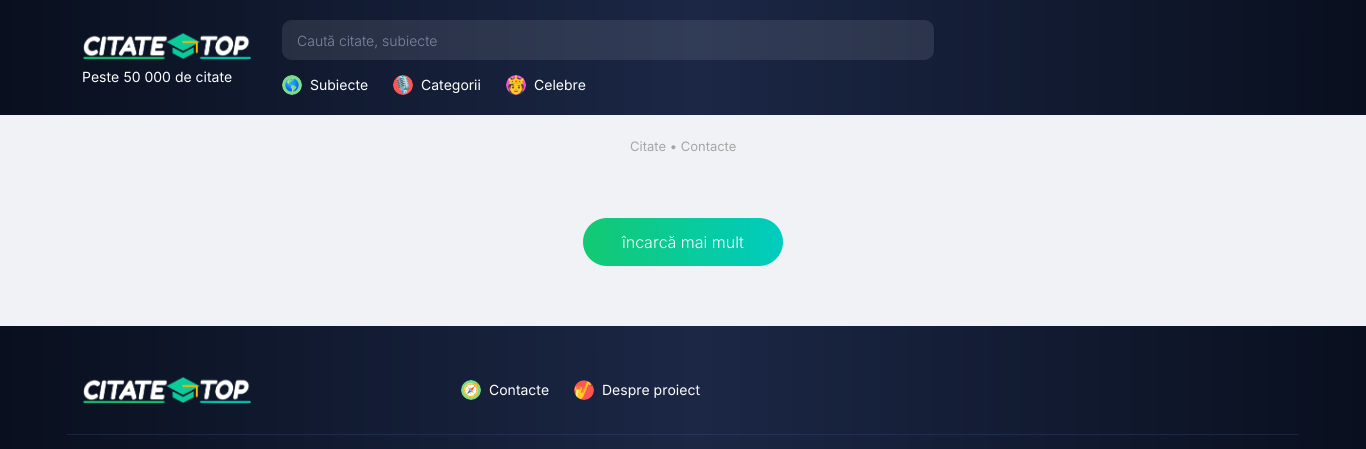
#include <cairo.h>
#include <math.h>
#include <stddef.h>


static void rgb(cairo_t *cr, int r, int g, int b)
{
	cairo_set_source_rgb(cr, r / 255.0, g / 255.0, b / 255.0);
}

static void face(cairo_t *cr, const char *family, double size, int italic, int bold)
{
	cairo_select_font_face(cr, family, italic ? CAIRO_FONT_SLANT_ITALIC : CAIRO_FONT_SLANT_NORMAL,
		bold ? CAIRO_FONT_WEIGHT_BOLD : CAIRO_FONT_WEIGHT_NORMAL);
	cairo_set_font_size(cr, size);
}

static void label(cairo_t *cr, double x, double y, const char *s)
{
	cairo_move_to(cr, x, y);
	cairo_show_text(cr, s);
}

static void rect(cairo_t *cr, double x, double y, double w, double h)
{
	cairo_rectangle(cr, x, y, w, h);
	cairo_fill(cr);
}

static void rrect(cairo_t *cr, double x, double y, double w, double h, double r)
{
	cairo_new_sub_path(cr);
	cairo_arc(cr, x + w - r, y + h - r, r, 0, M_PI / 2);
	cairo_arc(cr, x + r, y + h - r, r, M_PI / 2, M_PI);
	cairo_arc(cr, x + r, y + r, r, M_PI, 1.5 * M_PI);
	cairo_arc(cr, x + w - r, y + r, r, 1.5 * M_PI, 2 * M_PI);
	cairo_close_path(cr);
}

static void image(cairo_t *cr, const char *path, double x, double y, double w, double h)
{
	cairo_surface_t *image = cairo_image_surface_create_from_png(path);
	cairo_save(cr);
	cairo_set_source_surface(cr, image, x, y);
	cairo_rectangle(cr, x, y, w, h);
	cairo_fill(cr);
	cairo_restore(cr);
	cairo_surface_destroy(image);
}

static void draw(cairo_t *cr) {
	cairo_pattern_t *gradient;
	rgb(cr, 240, 242, 245);
	cairo_paint(cr);
	gradient = cairo_pattern_create_linear(0, 58, 1366, 57);
	cairo_pattern_add_color_stop_rgba(gradient, 0, 0.035, 0.059, 0.118, 1);
	cairo_pattern_add_color_stop_rgba(gradient, 0.51, 0.106, 0.153, 0.271, 1);
	cairo_pattern_add_color_stop_rgba(gradient, 1, 0.035, 0.059, 0.118, 1);
	cairo_set_source(cr, gradient);
	cairo_pattern_destroy(gradient);
	rect(cr, 0, 0, 1366, 115);
	image(cr, "image0.png", 83, 33, 168, 27);
	face(cr, "Inter", 14, 0, 0);
	rgb(cr, 255, 255, 255);
	label(cr, 82, 82, "Peste 50 000 de citate");
	cairo_set_source_rgba(cr, 1, 1, 1, 0.1);
	rrect(cr, 282, 20, 652, 40, 10);
	cairo_fill(cr);
	face(cr, "Inter Light", 14, 0, 0);
	rgb(cr, 126, 135, 163);
	label(cr, 297, 46, "Caută citate, subiecte");
	rgb(cr, 29, 37, 57);
	cairo_new_path(cr);
	cairo_arc(cr, 292, 85, 10, 0, 2 * M_PI);
	cairo_fill(cr);
	image(cr, "image1.png", 282, 75, 20, 20);
	face(cr, "Inter", 14, 0, 0);
	rgb(cr, 255, 255, 255);
	label(cr, 310, 90, "Subiecte");
	rgb(cr, 31, 40, 63);
	cairo_new_path(cr);
	cairo_arc(cr, 403, 85, 10, 0, 2 * M_PI);
	cairo_fill(cr);
	image(cr, "image2.png", 393, 75, 20, 20);
	rgb(cr, 255, 255, 255);
	label(cr, 421, 90, "Categorii");
	rgb(cr, 34, 44, 69);
	cairo_new_path(cr);
	cairo_arc(cr, 516, 85, 10, 0, 2 * M_PI);
	cairo_fill(cr);
	image(cr, "image3.png", 506, 75, 20, 20);
	rgb(cr, 255, 255, 255);
	label(cr, 534, 90, "Celebre");
	face(cr, "Inter", 13, 0, 0);
	rgb(cr, 165, 165, 165);
	label(cr, 630, 151, "Citate • Contacte");
	gradient = cairo_pattern_create_linear(583, 242, 783, 242);
	cairo_pattern_add_color_stop_rgba(gradient, 0, 0.075, 0.788, 0.447, 1);
	cairo_pattern_add_color_stop_rgba(gradient, 1, 0, 0.8, 0.753, 1);
	cairo_set_source(cr, gradient);
	cairo_pattern_destroy(gradient);
	rrect(cr, 583, 218, 200, 48, 24);
	cairo_fill(cr);
	face(cr, "Inter Light", 16, 0, 0);
	rgb(cr, 255, 255, 255);
	label(cr, 622, 248, "încarcă mai mult");
	gradient = cairo_pattern_create_linear(0, 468, 1366, 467);
	cairo_pattern_add_color_stop_rgba(gradient, 0, 0.035, 0.059, 0.118, 1);
	cairo_pattern_add_color_stop_rgba(gradient, 0.51, 0.106, 0.153, 0.271, 1);
	cairo_pattern_add_color_stop_rgba(gradient, 1, 0.035, 0.059, 0.118, 1);
	cairo_set_source(cr, gradient);
	cairo_pattern_destroy(gradient);
	rect(cr, 0, 326, 1366, 123);
	gradient = cairo_pattern_create_linear(0, 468, 1366, 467);
	cairo_pattern_add_color_stop_rgba(gradient, 0, 0.094, 0.133, 0.227, 1);
	cairo_pattern_add_color_stop_rgba(gradient, 0.51, 0.153, 0.208, 0.353, 1);
	cairo_pattern_add_color_stop_rgba(gradient, 1, 0.094, 0.133, 0.227, 1);
	cairo_set_source(cr, gradient);
	cairo_pattern_destroy(gradient);
	rect(cr, 67, 434, 1232, 1);
	image(cr, "image0.png", 83, 377, 168, 27);
	rgb(cr, 33, 42, 66);
	cairo_arc(cr, 471, 390, 10, 0, 2 * M_PI);
	cairo_fill(cr);
	image(cr, "image4.png", 461, 380, 20, 20);
	face(cr, "Inter", 14, 0, 0);
	rgb(cr, 255, 255, 255);
	label(cr, 489, 395, "Contacte");
	rgb(cr, 36, 46, 72);
	cairo_new_path(cr);
	cairo_arc(cr, 584, 390, 10, 0, 2 * M_PI);
	cairo_fill(cr);
	image(cr, "image5.png", 574, 380, 20, 20);
	rgb(cr, 255, 255, 255);
	label(cr, 602, 395, "Despre proiect");
}

int main(void) {
	cairo_surface_t *surface = cairo_image_surface_create(CAIRO_FORMAT_RGB24, 1366, 449);
	cairo_t *cr = cairo_create(surface);
	cairo_font_options_t *options = cairo_font_options_create();
	cairo_font_options_set_hint_metrics(options, CAIRO_HINT_METRICS_OFF);
	cairo_font_options_set_hint_style(options, CAIRO_HINT_STYLE_NONE);
	cairo_set_font_options(cr, options);
	cairo_set_miter_limit(cr, 4);
	draw(cr);
	cairo_surface_write_to_png(surface, "render.png");
	cairo_font_options_destroy(options);
	cairo_destroy(cr);
	cairo_surface_destroy(surface);
	return 0;
}
